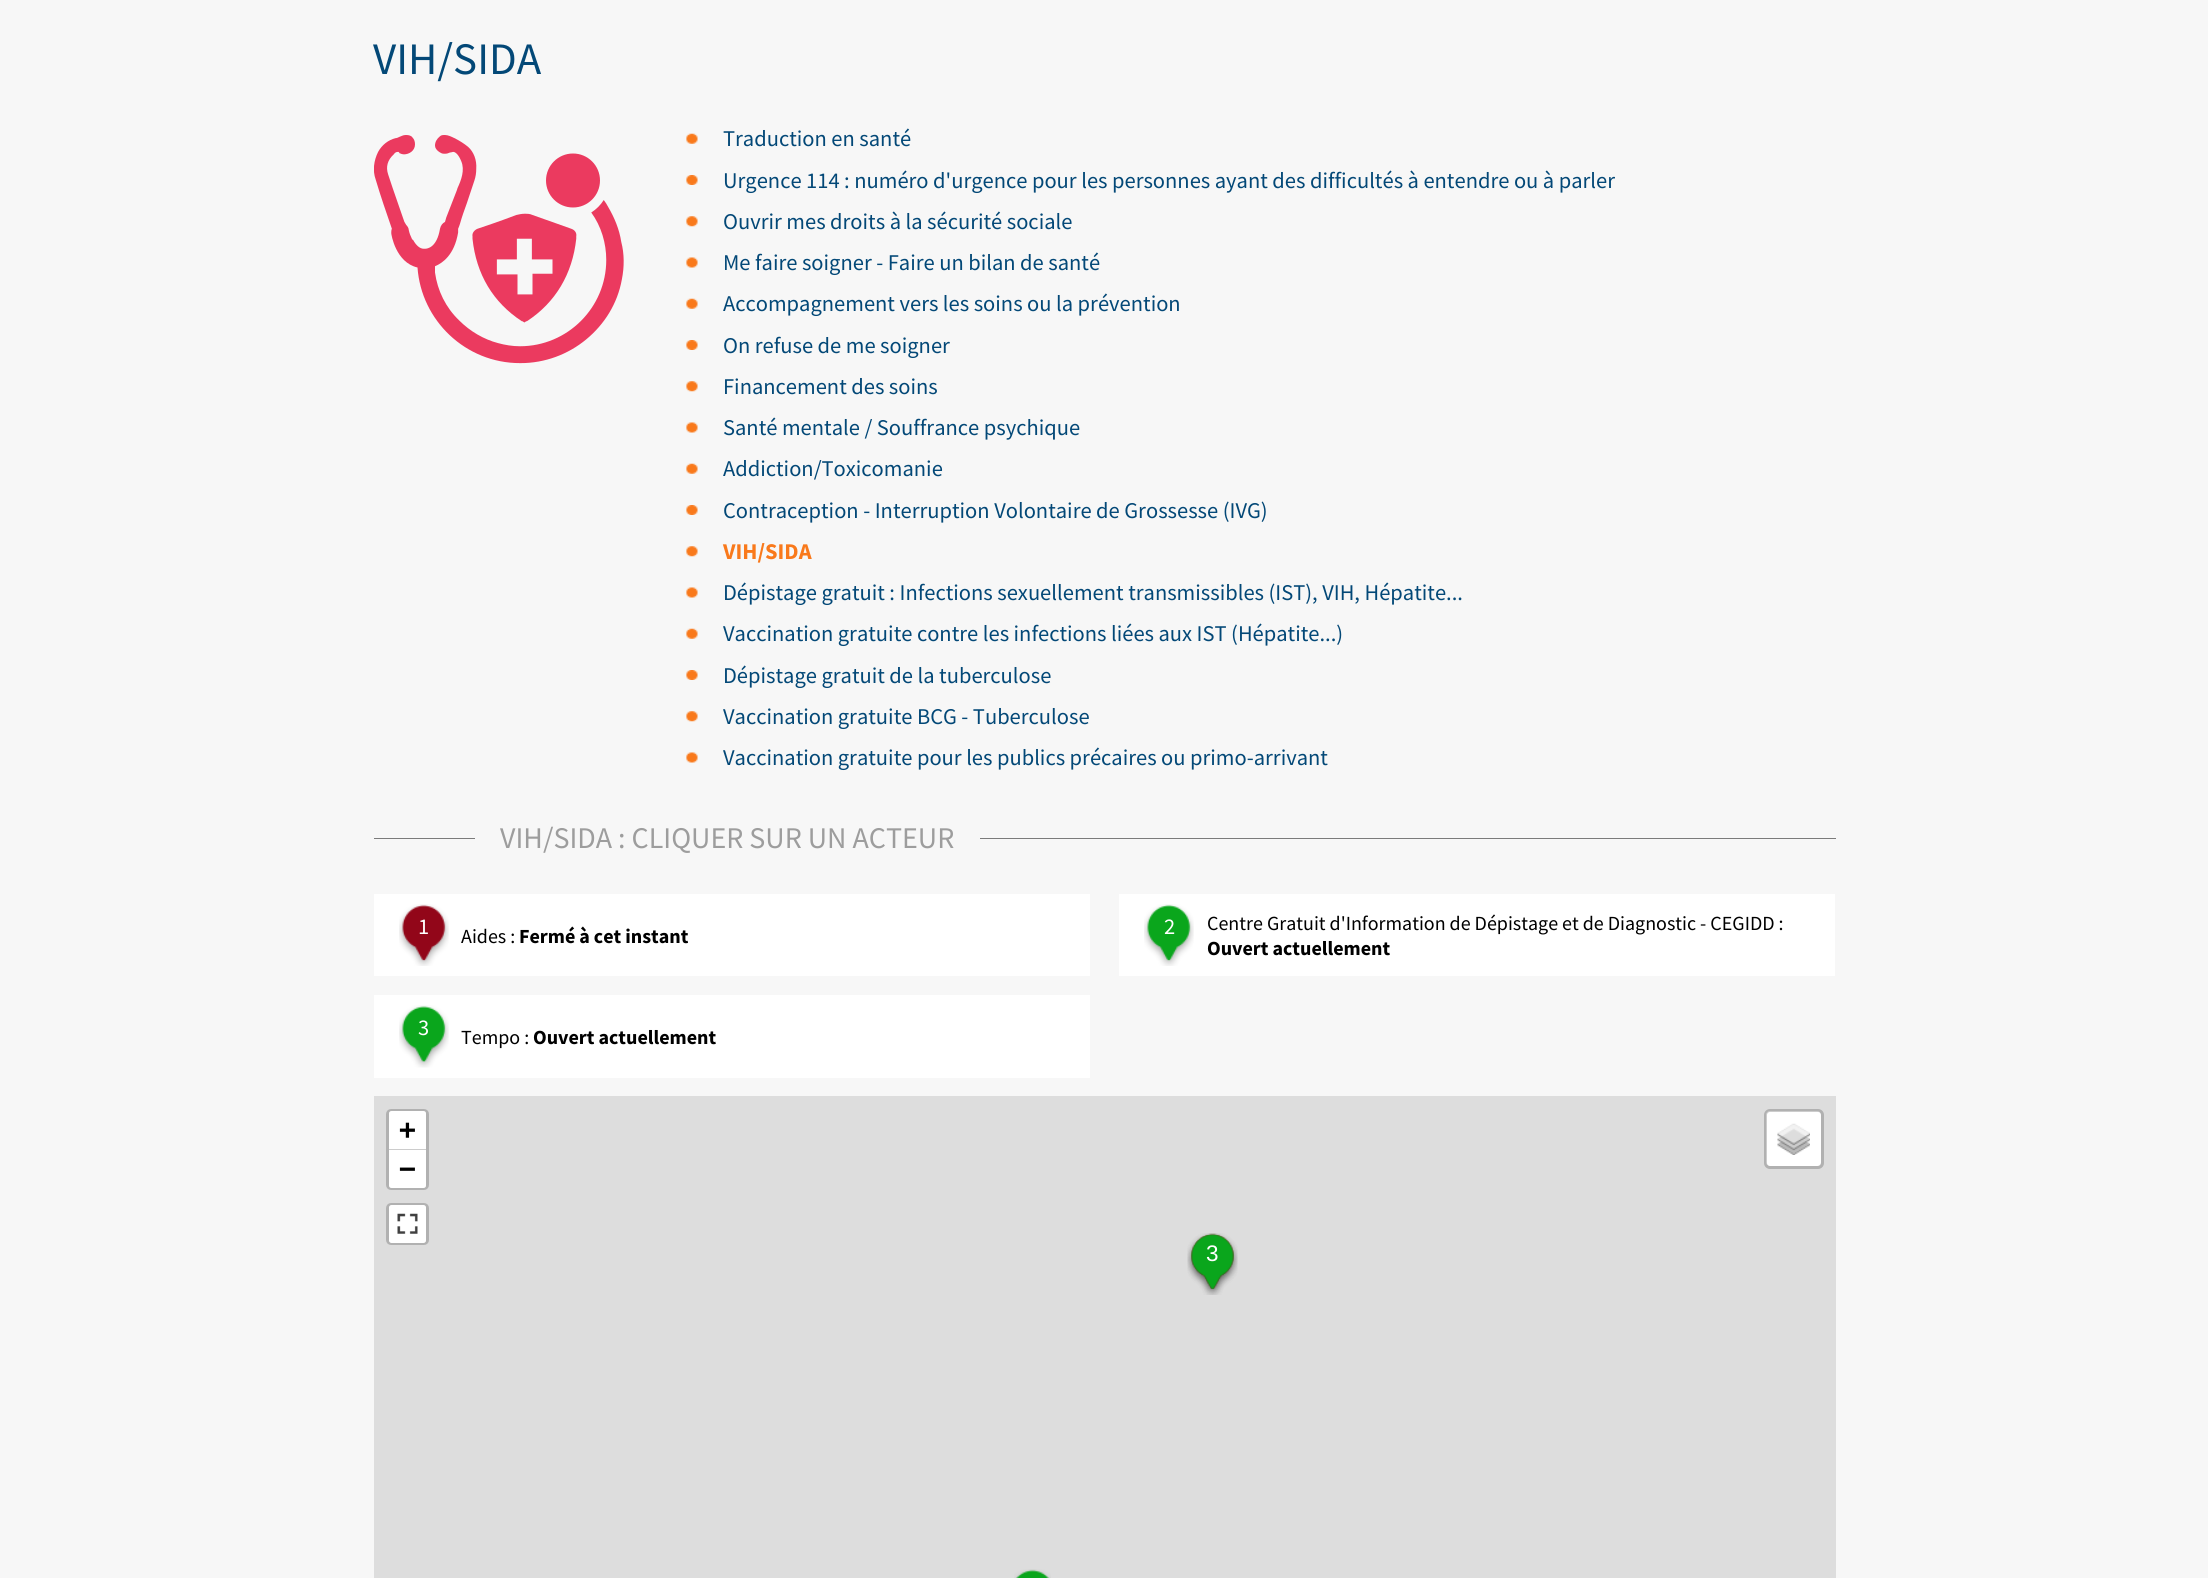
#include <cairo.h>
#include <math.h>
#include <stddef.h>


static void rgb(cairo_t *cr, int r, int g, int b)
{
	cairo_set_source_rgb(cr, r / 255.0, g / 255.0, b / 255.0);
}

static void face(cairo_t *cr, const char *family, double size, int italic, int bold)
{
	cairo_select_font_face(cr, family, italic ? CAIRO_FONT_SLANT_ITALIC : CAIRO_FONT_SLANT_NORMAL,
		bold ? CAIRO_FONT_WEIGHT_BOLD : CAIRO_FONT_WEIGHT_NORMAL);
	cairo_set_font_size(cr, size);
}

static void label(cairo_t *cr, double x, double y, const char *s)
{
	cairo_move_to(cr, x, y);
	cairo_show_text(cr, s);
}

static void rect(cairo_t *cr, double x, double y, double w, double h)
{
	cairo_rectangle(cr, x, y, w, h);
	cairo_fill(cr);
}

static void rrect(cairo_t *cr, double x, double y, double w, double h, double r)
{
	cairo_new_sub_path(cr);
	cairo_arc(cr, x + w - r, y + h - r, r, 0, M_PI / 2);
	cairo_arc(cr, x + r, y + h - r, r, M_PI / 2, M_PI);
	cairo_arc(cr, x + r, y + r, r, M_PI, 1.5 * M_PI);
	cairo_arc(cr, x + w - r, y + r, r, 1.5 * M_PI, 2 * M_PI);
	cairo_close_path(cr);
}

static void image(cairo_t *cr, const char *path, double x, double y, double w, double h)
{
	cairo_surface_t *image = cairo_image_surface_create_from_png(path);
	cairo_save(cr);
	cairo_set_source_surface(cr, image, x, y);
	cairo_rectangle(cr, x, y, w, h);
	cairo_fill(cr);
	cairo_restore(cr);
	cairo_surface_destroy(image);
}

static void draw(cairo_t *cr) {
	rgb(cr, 247, 247, 247);
	cairo_paint(cr);
	face(cr, "Source Sans Pro", 45, 0, 0);
	rgb(cr, 3, 72, 119);
	label(cr, 373, 74, "VIH/SIDA");
	image(cr, "image0.png", 374, 135, 250, 229);
	image(cr, "image1.png", 686, 133, 12, 11);
	face(cr, "Source Sans Pro", 22.5, 0, 0);
	label(cr, 723, 146, "Traduction en santé");
	image(cr, "image2.png", 686, 175, 12, 10);
	label(cr, 723, 188, "Urgence 114 : numéro d'urgence pour les personnes ayant des difficultés à entendre ou à parler");
	image(cr, "image3.png", 686, 216, 12, 11);
	label(cr, 723, 229, "Ouvrir mes droits à la sécurité sociale");
	image(cr, "image4.png", 686, 257, 12, 11);
	label(cr, 723, 270, "Me faire soigner - Faire un bilan de santé");
	image(cr, "image1.png", 686, 298, 12, 11);
	label(cr, 723, 311, "Accompagnement vers les soins ou la prévention");
	image(cr, "image2.png", 686, 340, 12, 10);
	label(cr, 723, 353, "On refuse de me soigner");
	image(cr, "image3.png", 686, 381, 12, 11);
	label(cr, 723, 394, "Financement des soins");
	image(cr, "image4.png", 686, 422, 12, 11);
	label(cr, 723, 435, "Santé mentale / Souffrance psychique");
	image(cr, "image1.png", 686, 463, 12, 11);
	label(cr, 723, 476, "Addiction/Toxicomanie");
	image(cr, "image2.png", 686, 505, 12, 10);
	label(cr, 723, 518, "Contraception - Interruption Volontaire de Grossesse (IVG)");
	image(cr, "image3.png", 686, 546, 12, 11);
	face(cr, "Source Sans Pro", 22.5, 0, 1);
	rgb(cr, 249, 121, 27);
	label(cr, 723, 559, "VIH/SIDA");
	image(cr, "image4.png", 686, 587, 12, 11);
	face(cr, "Source Sans Pro", 22.5, 0, 0);
	rgb(cr, 3, 72, 119);
	label(cr, 723, 600, "Dépistage gratuit : Infections sexuellement transmissibles (IST), VIH, Hépatite...");
	image(cr, "image1.png", 686, 628, 12, 11);
	label(cr, 723, 641, "Vaccination gratuite contre les infections liées aux IST (Hépatite...)");
	image(cr, "image2.png", 686, 670, 12, 10);
	label(cr, 723, 683, "Dépistage gratuit de la tuberculose");
	image(cr, "image3.png", 686, 711, 12, 11);
	label(cr, 723, 724, "Vaccination gratuite BCG - Tuberculose");
	image(cr, "image4.png", 686, 752, 12, 11);
	label(cr, 723, 765, "Vaccination gratuite pour les publics précaires ou primo-arrivant");
	rgb(cr, 123, 123, 123);
	rect(cr, 374, 838, 1462, 1);
	rgb(cr, 247, 247, 247);
	rect(cr, 475, 838, 505, 1);
	face(cr, "Source Sans Pro", 30, 0, 0);
	rgb(cr, 157, 157, 157);
	label(cr, 500, 848, "VIH/SIDA : CLIQUER SUR UN ACTEUR");
	rgb(cr, 255, 255, 255);
	rect(cr, 374, 894, 716, 82);
	image(cr, "image5.png", 399, 904, 50, 62);
	face(cr, "Source Sans Pro", 22.5, 0, 0);
	label(cr, 418, 934, "1");
	face(cr, "Source Sans Pro", 20, 0, 0);
	rgb(cr, 0, 0, 0);
	label(cr, 461, 943, "Aides :");
	face(cr, "Source Sans Pro", 20, 0, 1);
	label(cr, 519, 943, "Fermé à cet instant");
	rgb(cr, 255, 255, 255);
	rect(cr, 1119, 894, 716, 82);
	image(cr, "image6.png", 1144, 904, 50, 62);
	face(cr, "Source Sans Pro", 22.5, 0, 0);
	label(cr, 1164, 934, "2");
	face(cr, "Source Sans Pro", 20, 0, 0);
	rgb(cr, 0, 0, 0);
	label(cr, 1207, 930, "Centre Gratuit d'Information de Dépistage et de Diagnostic - CEGIDD :");
	face(cr, "Source Sans Pro", 20, 0, 1);
	label(cr, 1207, 955, "Ouvert actuellement");
	rgb(cr, 255, 255, 255);
	rect(cr, 374, 995, 716, 83);
	image(cr, "image7.png", 399, 1005, 50, 63);
	face(cr, "Source Sans Pro", 22.5, 0, 0);
	label(cr, 418, 1035, "3");
	face(cr, "Source Sans Pro", 20, 0, 0);
	rgb(cr, 0, 0, 0);
	label(cr, 461, 1044, "Tempo :");
	face(cr, "Source Sans Pro", 20, 0, 1);
	label(cr, 533, 1044, "Ouvert actuellement");
	rgb(cr, 221, 221, 221);
	rect(cr, 374, 1096, 1462, 482);
	rrect(cr, 387.5, 1110.5, 40, 78, 3.5);
	rgb(cr, 177, 177, 177);
	cairo_set_line_width(cr, 3);
	cairo_stroke(cr);
	rgb(cr, 255, 255, 255);
	cairo_new_path(cr);
	cairo_move_to(cr, 391.5, 1111);
	cairo_line_to(cr, 423.5, 1111);
	cairo_curve_to(cr, 425, 1111, 426, 1112, 426, 1113.5);
	cairo_line_to(cr, 426, 1150);
	cairo_line_to(cr, 389, 1150);
	cairo_line_to(cr, 389, 1113.5);
	cairo_curve_to(cr, 389, 1112, 390, 1111, 391.5, 1111);
	cairo_close_path(cr);
	cairo_fill(cr);
	rgb(cr, 204, 204, 204);
	rect(cr, 389, 1149, 37, 1);
	face(cr, "DejaVu Sans Mono", 28, 0, 1);
	rgb(cr, 0, 0, 0);
	label(cr, 399, 1139, "+");
	rgb(cr, 255, 255, 255);
	cairo_new_path(cr);
	cairo_move_to(cr, 389, 1150);
	cairo_line_to(cr, 426, 1150);
	cairo_line_to(cr, 426, 1185.5);
	cairo_curve_to(cr, 426, 1187, 425, 1188, 423.5, 1188);
	cairo_line_to(cr, 391.5, 1188);
	cairo_curve_to(cr, 390, 1188, 389, 1187, 389, 1185.5);
	cairo_close_path(cr);
	cairo_fill(cr);
	rgb(cr, 0, 0, 0);
	label(cr, 399, 1178, "−");
	rrect(cr, 387.5, 1204.5, 40, 39, 3.5);
	rgb(cr, 177, 177, 177);
	cairo_stroke(cr);
	rgb(cr, 255, 255, 255);
	rrect(cr, 389, 1205, 37, 38, 2.5);
	cairo_fill(cr);
	image(cr, "image8.png", 397, 1213, 21, 21);
	rrect(cr, 1766, 1111, 55, 55, 4);
	cairo_fill(cr);
	rrect(cr, 1765.5, 1110.5, 57, 57, 4.5);
	cairo_set_source_rgba(cr, 0, 0, 0, 0.2);
	cairo_stroke(cr);
	image(cr, "image9.png", 1777, 1123, 33, 32);
	image(cr, "image10.png", 1187, 1233, 51, 62);
	image(cr, "image11.png", 1187, 1233, 51, 62);
	face(cr, "Liberation Sans", 22.5, 0, 0);
	rgb(cr, 255, 255, 255);
	label(cr, 1206, 1261, "3");
	image(cr, "image12.png", 1014, 1569, 37, 9);
}

int main(void) {
	cairo_surface_t *surface = cairo_image_surface_create(CAIRO_FORMAT_RGB24, 2208, 1578);
	cairo_t *cr = cairo_create(surface);
	cairo_font_options_t *options = cairo_font_options_create();
	cairo_font_options_set_hint_metrics(options, CAIRO_HINT_METRICS_OFF);
	cairo_font_options_set_hint_style(options, CAIRO_HINT_STYLE_NONE);
	cairo_set_font_options(cr, options);
	cairo_set_miter_limit(cr, 4);
	draw(cr);
	cairo_surface_write_to_png(surface, "render.png");
	cairo_font_options_destroy(options);
	cairo_destroy(cr);
	cairo_surface_destroy(surface);
	return 0;
}
